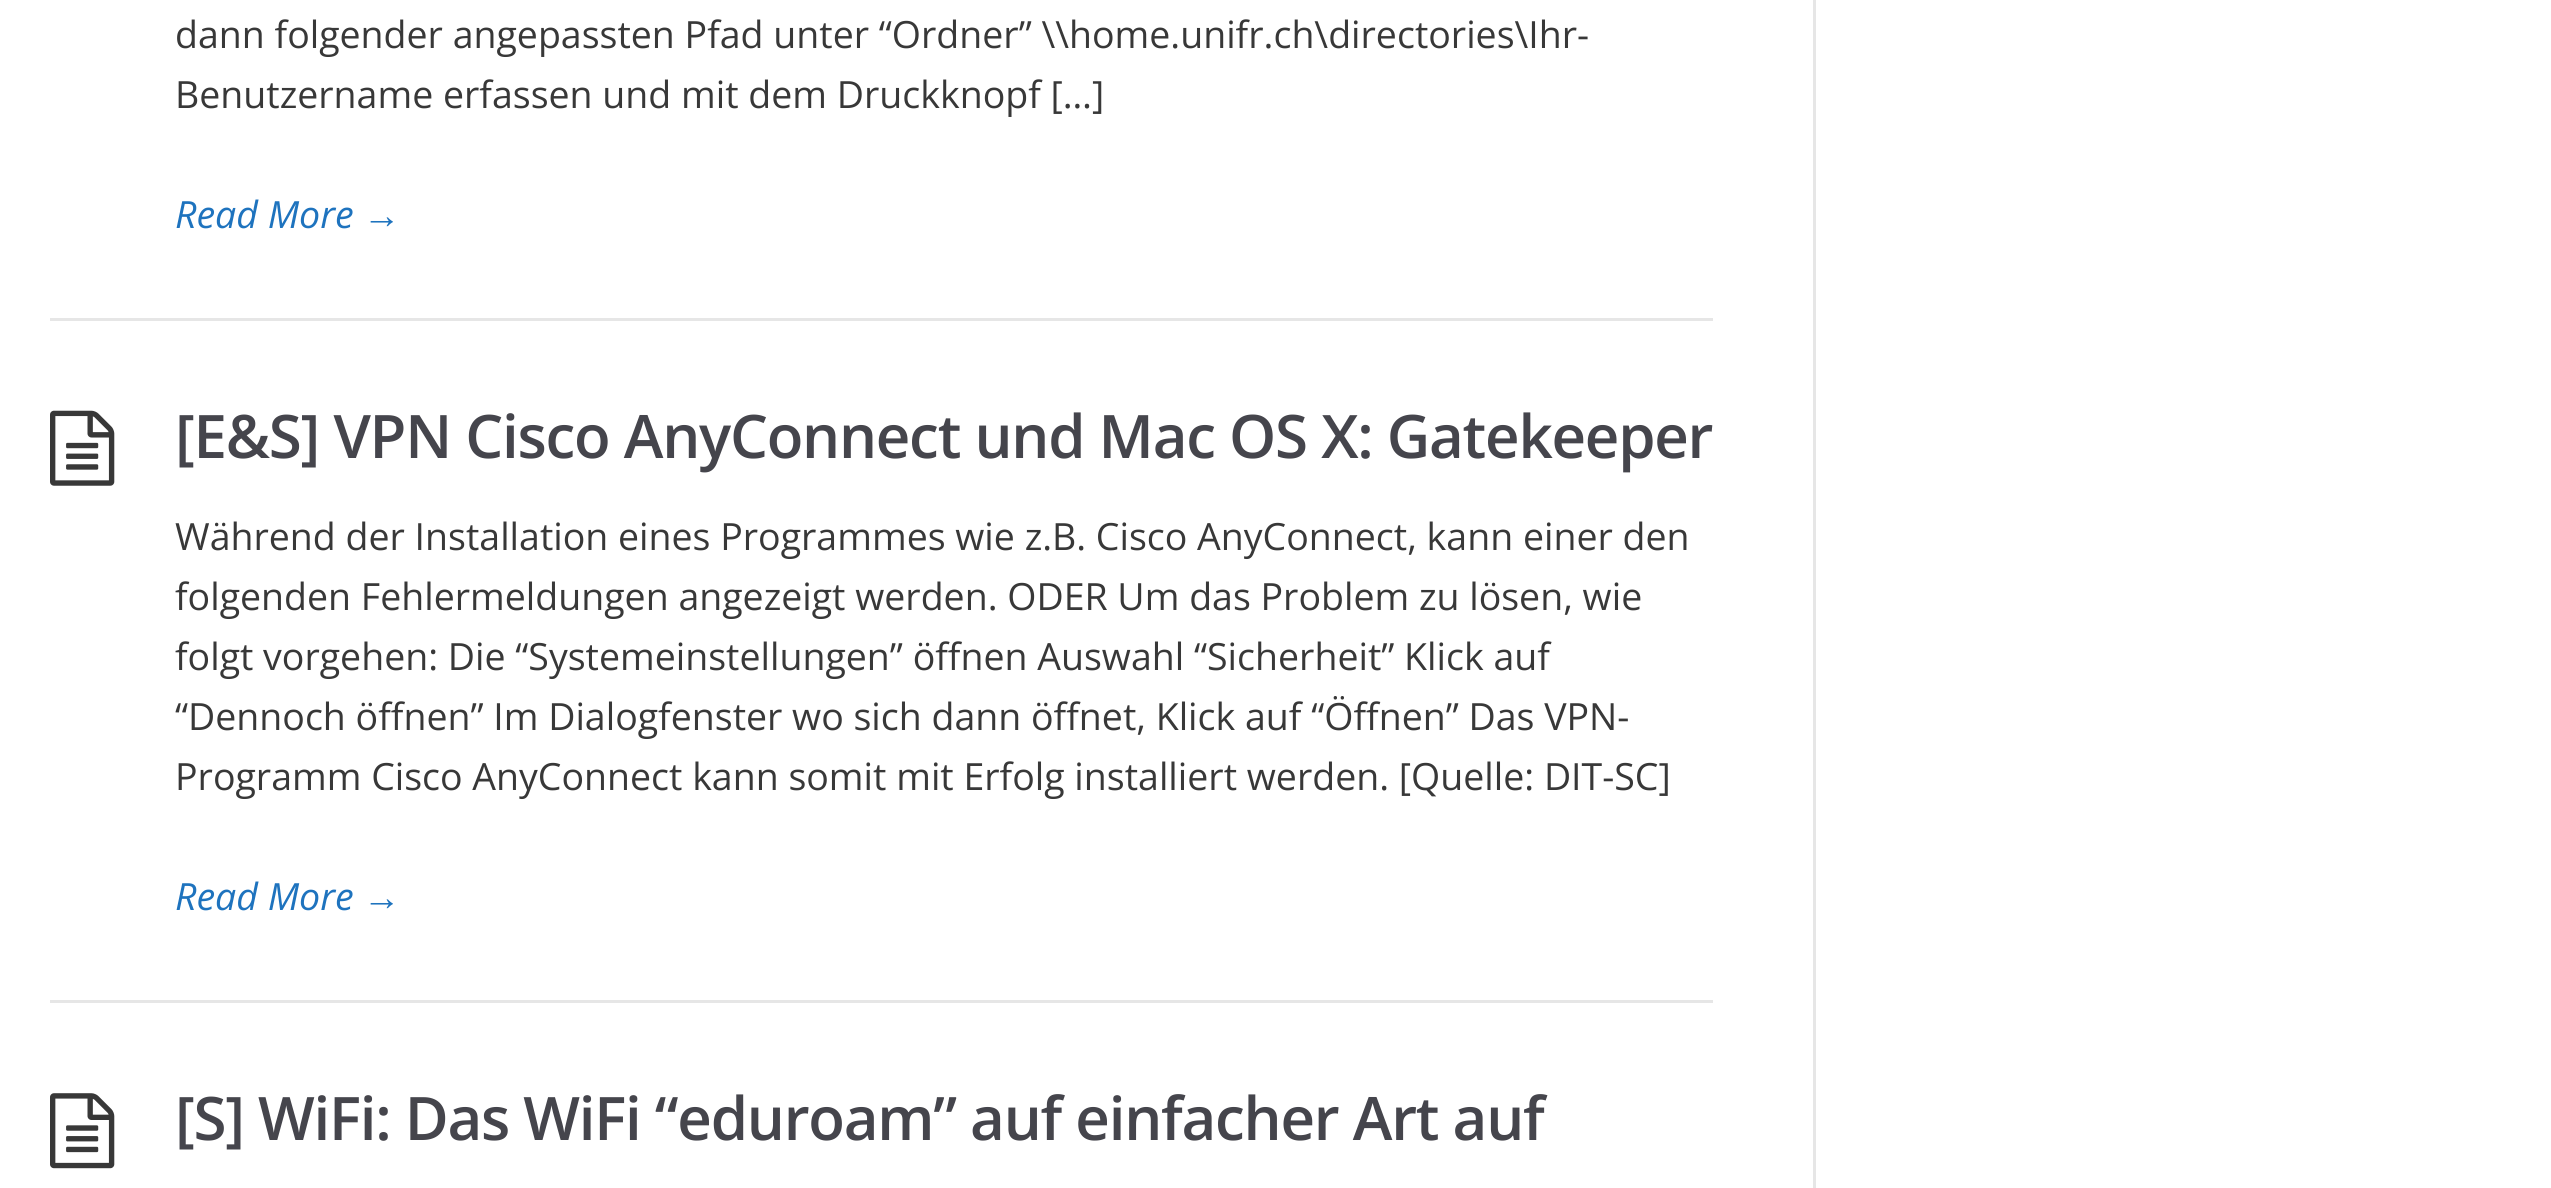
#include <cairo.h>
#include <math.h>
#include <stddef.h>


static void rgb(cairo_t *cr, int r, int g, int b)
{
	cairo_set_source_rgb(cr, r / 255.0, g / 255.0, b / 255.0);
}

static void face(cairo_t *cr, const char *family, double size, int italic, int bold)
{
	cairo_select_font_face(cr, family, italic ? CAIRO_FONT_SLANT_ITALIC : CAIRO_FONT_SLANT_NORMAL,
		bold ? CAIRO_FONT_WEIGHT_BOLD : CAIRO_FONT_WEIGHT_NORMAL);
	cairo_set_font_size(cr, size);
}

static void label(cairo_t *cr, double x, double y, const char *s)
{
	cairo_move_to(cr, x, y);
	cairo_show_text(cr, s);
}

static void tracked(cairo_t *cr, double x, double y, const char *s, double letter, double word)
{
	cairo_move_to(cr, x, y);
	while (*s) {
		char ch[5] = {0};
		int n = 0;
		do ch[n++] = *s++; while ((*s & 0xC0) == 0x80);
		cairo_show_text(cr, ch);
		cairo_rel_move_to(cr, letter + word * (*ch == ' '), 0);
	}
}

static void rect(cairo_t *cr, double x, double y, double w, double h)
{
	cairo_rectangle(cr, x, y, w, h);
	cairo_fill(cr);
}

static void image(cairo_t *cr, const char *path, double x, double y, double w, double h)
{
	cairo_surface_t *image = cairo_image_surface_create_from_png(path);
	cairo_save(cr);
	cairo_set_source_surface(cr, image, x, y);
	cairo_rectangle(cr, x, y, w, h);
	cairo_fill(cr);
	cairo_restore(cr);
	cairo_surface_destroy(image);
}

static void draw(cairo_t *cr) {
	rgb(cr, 255, 255, 255);
	cairo_paint(cr);
	rgb(cr, 230, 230, 230);
	rect(cr, 1813, 0, 3, 1188);
	rect(cr, 50, 318, 1663, 3);
	face(cr, "Open Sans", 37.5, 0, 0);
	rgb(cr, 56, 56, 56);
	label(cr, 175, 48, "dann folgender angepassten Pfad unter “Ordner” \\\\home.unifr.ch\\directories\\Ihr-");
	label(cr, 175, 108, "Benutzername erfassen und mit dem Druckknopf […]");
	face(cr, "Open Sans", 37.5, 1, 0);
	rgb(cr, 30, 115, 190);
	label(cr, 175, 228, "Read More");
	face(cr, "Liberation Sans", 37.5, 1, 0);
	label(cr, 363, 228, "→");
	rgb(cr, 230, 230, 230);
	rect(cr, 50, 1000, 1663, 3);
	image(cr, "image0.png", 50, 410, 65, 76);
	face(cr, "Open Sans SemiBold", 60, 0, 0);
	rgb(cr, 69, 69, 76);
	tracked(cr, 175, 458, "[E&S] VPN Cisco AnyConnect und Mac OS X: Gatekeeper", -1.25, 0);
	face(cr, "Open Sans", 37.5, 0, 0);
	rgb(cr, 56, 56, 56);
	label(cr, 175, 550, "Während der Installation eines Programmes wie z.B. Cisco AnyConnect, kann einer den");
	label(cr, 175, 610, "folgenden Fehlermeldungen angezeigt werden. ODER Um das Problem zu lösen, wie");
	label(cr, 175, 670, "folgt vorgehen: Die “Systemeinstellungen” öffnen Auswahl “Sicherheit” Klick auf");
	label(cr, 175, 730, "“Dennoch öffnen” Im Dialogfenster wo sich dann öffnet, Klick auf “Öffnen” Das VPN-");
	label(cr, 175, 790, "Programm Cisco AnyConnect kann somit mit Erfolg installiert werden. [Quelle: DIT-SC]");
	face(cr, "Open Sans", 37.5, 1, 0);
	rgb(cr, 30, 115, 190);
	label(cr, 175, 910, "Read More");
	face(cr, "Liberation Sans", 37.5, 1, 0);
	label(cr, 363, 910, "→");
	image(cr, "image1.png", 50, 1093, 65, 76);
	face(cr, "Open Sans SemiBold", 60, 0, 0);
	rgb(cr, 69, 69, 76);
	tracked(cr, 175, 1140, "[S] WiFi: Das WiFi “eduroam” auf einfacher Art auf", -1.25, 0);
}

int main(void) {
	cairo_surface_t *surface = cairo_image_surface_create(CAIRO_FORMAT_RGB24, 2551, 1188);
	cairo_t *cr = cairo_create(surface);
	cairo_font_options_t *options = cairo_font_options_create();
	cairo_font_options_set_hint_metrics(options, CAIRO_HINT_METRICS_OFF);
	cairo_font_options_set_hint_style(options, CAIRO_HINT_STYLE_NONE);
	cairo_set_font_options(cr, options);
	cairo_set_miter_limit(cr, 4);
	draw(cr);
	cairo_surface_write_to_png(surface, "render.png");
	cairo_font_options_destroy(options);
	cairo_destroy(cr);
	cairo_surface_destroy(surface);
	return 0;
}
